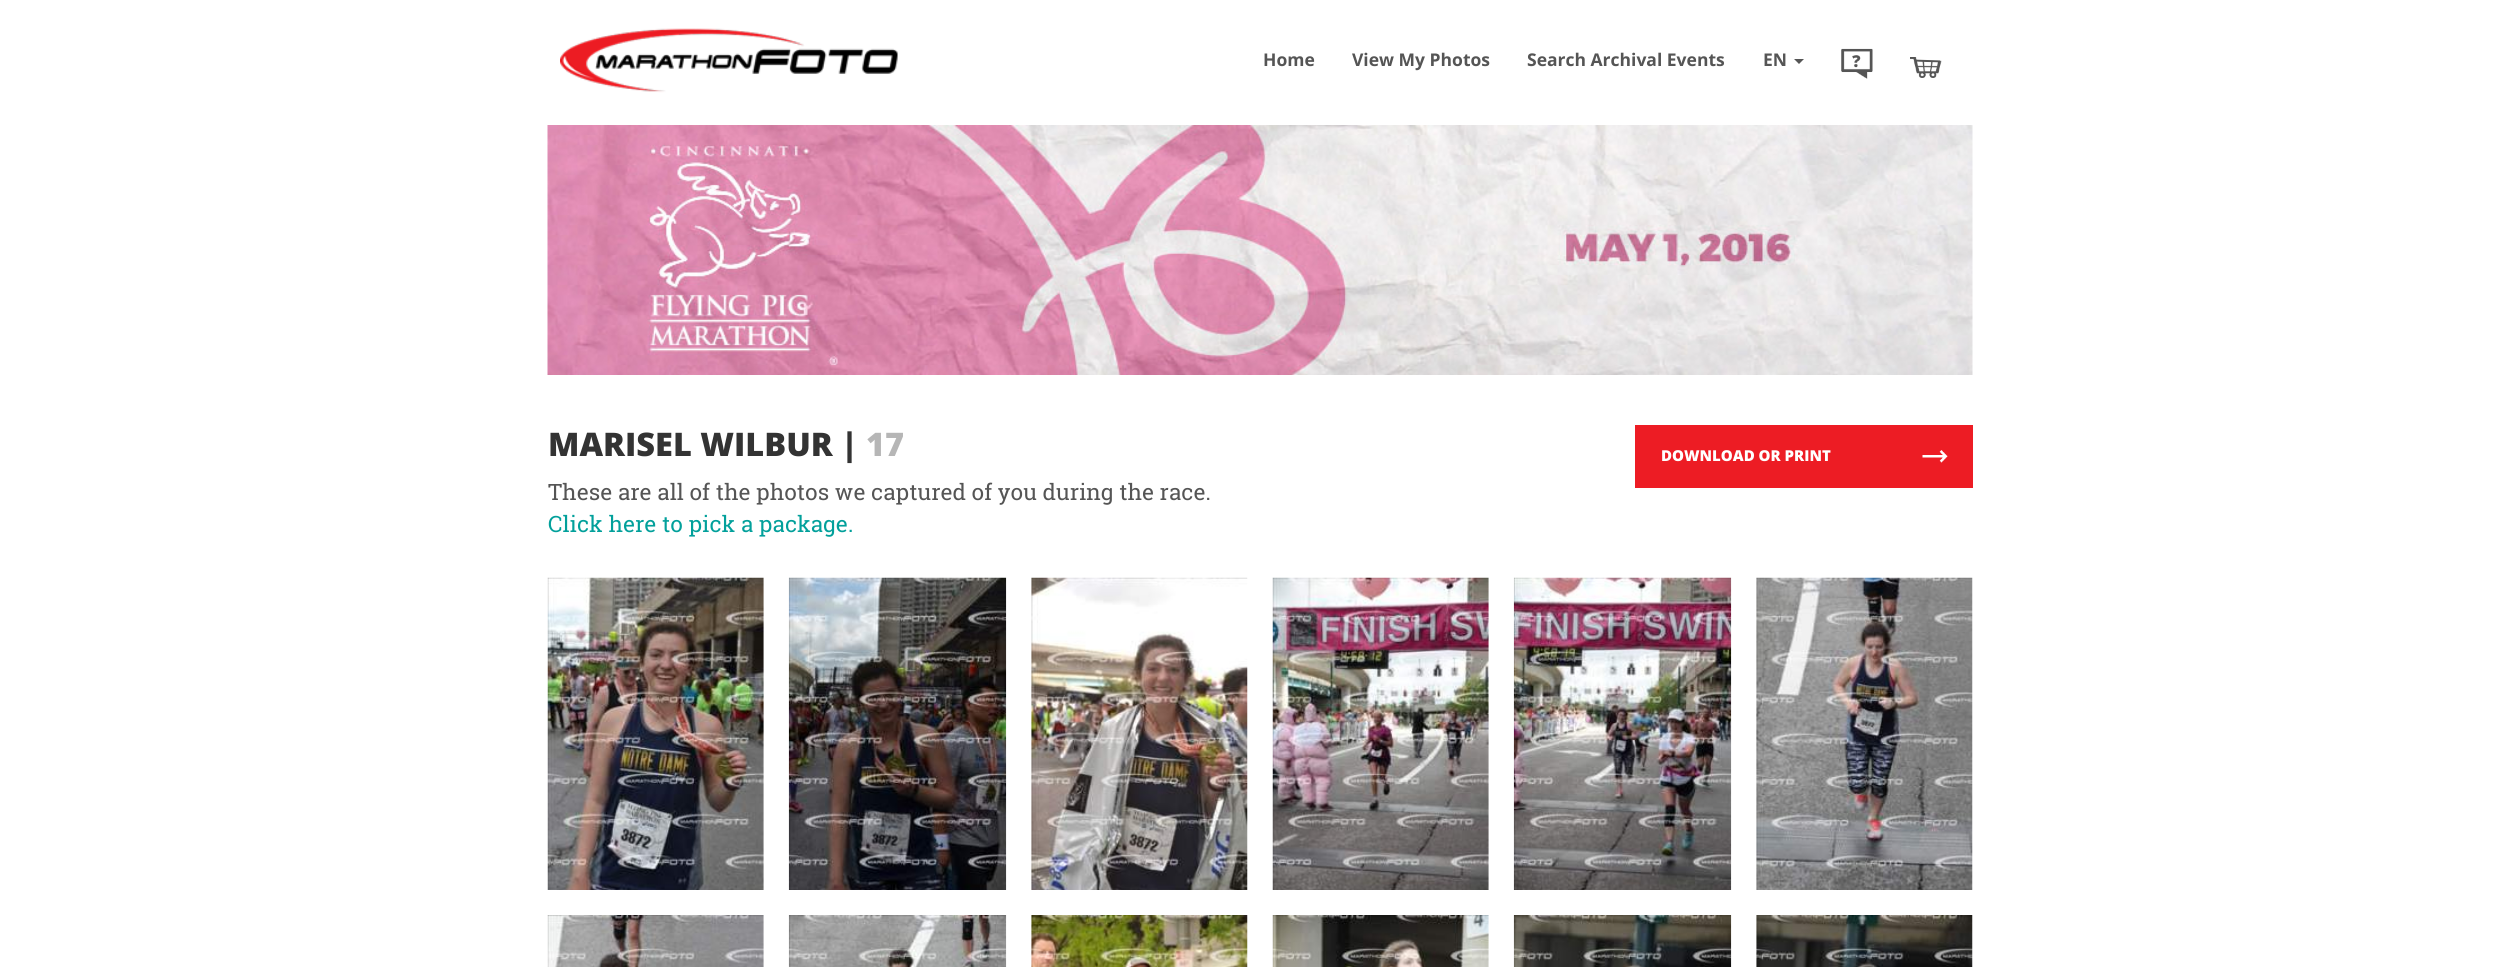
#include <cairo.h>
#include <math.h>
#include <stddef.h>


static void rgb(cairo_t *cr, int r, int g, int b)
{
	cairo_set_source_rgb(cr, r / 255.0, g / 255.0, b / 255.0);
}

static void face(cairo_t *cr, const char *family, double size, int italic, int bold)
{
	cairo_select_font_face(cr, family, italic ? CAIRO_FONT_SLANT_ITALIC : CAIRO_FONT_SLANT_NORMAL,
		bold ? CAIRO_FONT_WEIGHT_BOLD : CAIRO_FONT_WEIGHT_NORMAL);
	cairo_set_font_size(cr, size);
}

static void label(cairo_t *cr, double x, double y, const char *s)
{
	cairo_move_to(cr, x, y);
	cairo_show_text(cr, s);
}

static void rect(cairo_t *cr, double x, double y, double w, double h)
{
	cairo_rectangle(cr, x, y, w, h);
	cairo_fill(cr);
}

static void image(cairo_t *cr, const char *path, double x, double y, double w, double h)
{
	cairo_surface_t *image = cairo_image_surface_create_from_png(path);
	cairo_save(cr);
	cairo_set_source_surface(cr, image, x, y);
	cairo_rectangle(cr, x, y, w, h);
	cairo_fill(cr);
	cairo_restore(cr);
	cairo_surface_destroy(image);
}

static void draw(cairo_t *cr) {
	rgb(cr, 255, 255, 255);
	cairo_paint(cr);
	image(cr, "image0.png", 560, 28, 338, 65);
	face(cr, "Open Sans", 17.5, 0, 1);
	rgb(cr, 85, 85, 85);
	label(cr, 1263, 66, "Home");
	label(cr, 1352, 66, "View My Photos");
	label(cr, 1527, 66, "Search Archival Events");
	label(cr, 1763, 66, "EN");
	cairo_new_path(cr);
	cairo_move_to(cr, 1794, 59);
	cairo_line_to(cr, 1804, 59);
	cairo_line_to(cr, 1799, 64);
	cairo_close_path(cr);
	cairo_fill(cr);
	image(cr, "image1.png", 1841, 48, 32, 31);
	image(cr, "image2.png", 1910, 57, 32, 21);
	image(cr, "image3.png", 547, 125, 1426, 250);
	face(cr, "Open Sans ExtraBold", 32.5, 0, 0);
	rgb(cr, 51, 51, 51);
	label(cr, 548, 456, "MARISEL WILBUR |");
	rgb(cr, 182, 182, 182);
	label(cr, 866, 456, "17");
	face(cr, "Roboto Slab", 22.5, 0, 0);
	rgb(cr, 85, 85, 85);
	label(cr, 548, 500, "These are all of the photos we captured of you during the race.");
	rgb(cr, 2, 160, 155);
	label(cr, 548, 532, "Click here to pick a package.");
	rgb(cr, 237, 28, 36);
	rect(cr, 1635, 425, 338, 63);
	face(cr, "Open Sans ExtraBold", 15, 0, 0);
	rgb(cr, 255, 255, 255);
	label(cr, 1661, 461, "DOWNLOAD OR PRINT");
	image(cr, "image4.png", 1922, 450, 26, 13);
	image(cr, "image5.png", 547, 577, 217, 313);
	image(cr, "image6.png", 788, 577, 219, 313);
	image(cr, "image7.png", 1031, 577, 217, 313);
	image(cr, "image8.png", 1272, 577, 217, 313);
	image(cr, "image9.png", 1513, 577, 219, 313);
	image(cr, "image10.png", 1756, 577, 217, 313);
	image(cr, "image11.png", 547, 915, 217, 52);
	image(cr, "image12.png", 788, 915, 219, 52);
	image(cr, "image13.png", 1031, 915, 217, 52);
	image(cr, "image14.png", 1272, 915, 217, 52);
	image(cr, "image15.png", 1513, 915, 219, 52);
	image(cr, "image16.png", 1756, 915, 217, 52);
}

int main(void) {
	cairo_surface_t *surface = cairo_image_surface_create(CAIRO_FORMAT_RGB24, 2520, 967);
	cairo_t *cr = cairo_create(surface);
	cairo_font_options_t *options = cairo_font_options_create();
	cairo_font_options_set_hint_metrics(options, CAIRO_HINT_METRICS_OFF);
	cairo_font_options_set_hint_style(options, CAIRO_HINT_STYLE_NONE);
	cairo_set_font_options(cr, options);
	cairo_set_miter_limit(cr, 4);
	draw(cr);
	cairo_surface_write_to_png(surface, "render.png");
	cairo_font_options_destroy(options);
	cairo_destroy(cr);
	cairo_surface_destroy(surface);
	return 0;
}
